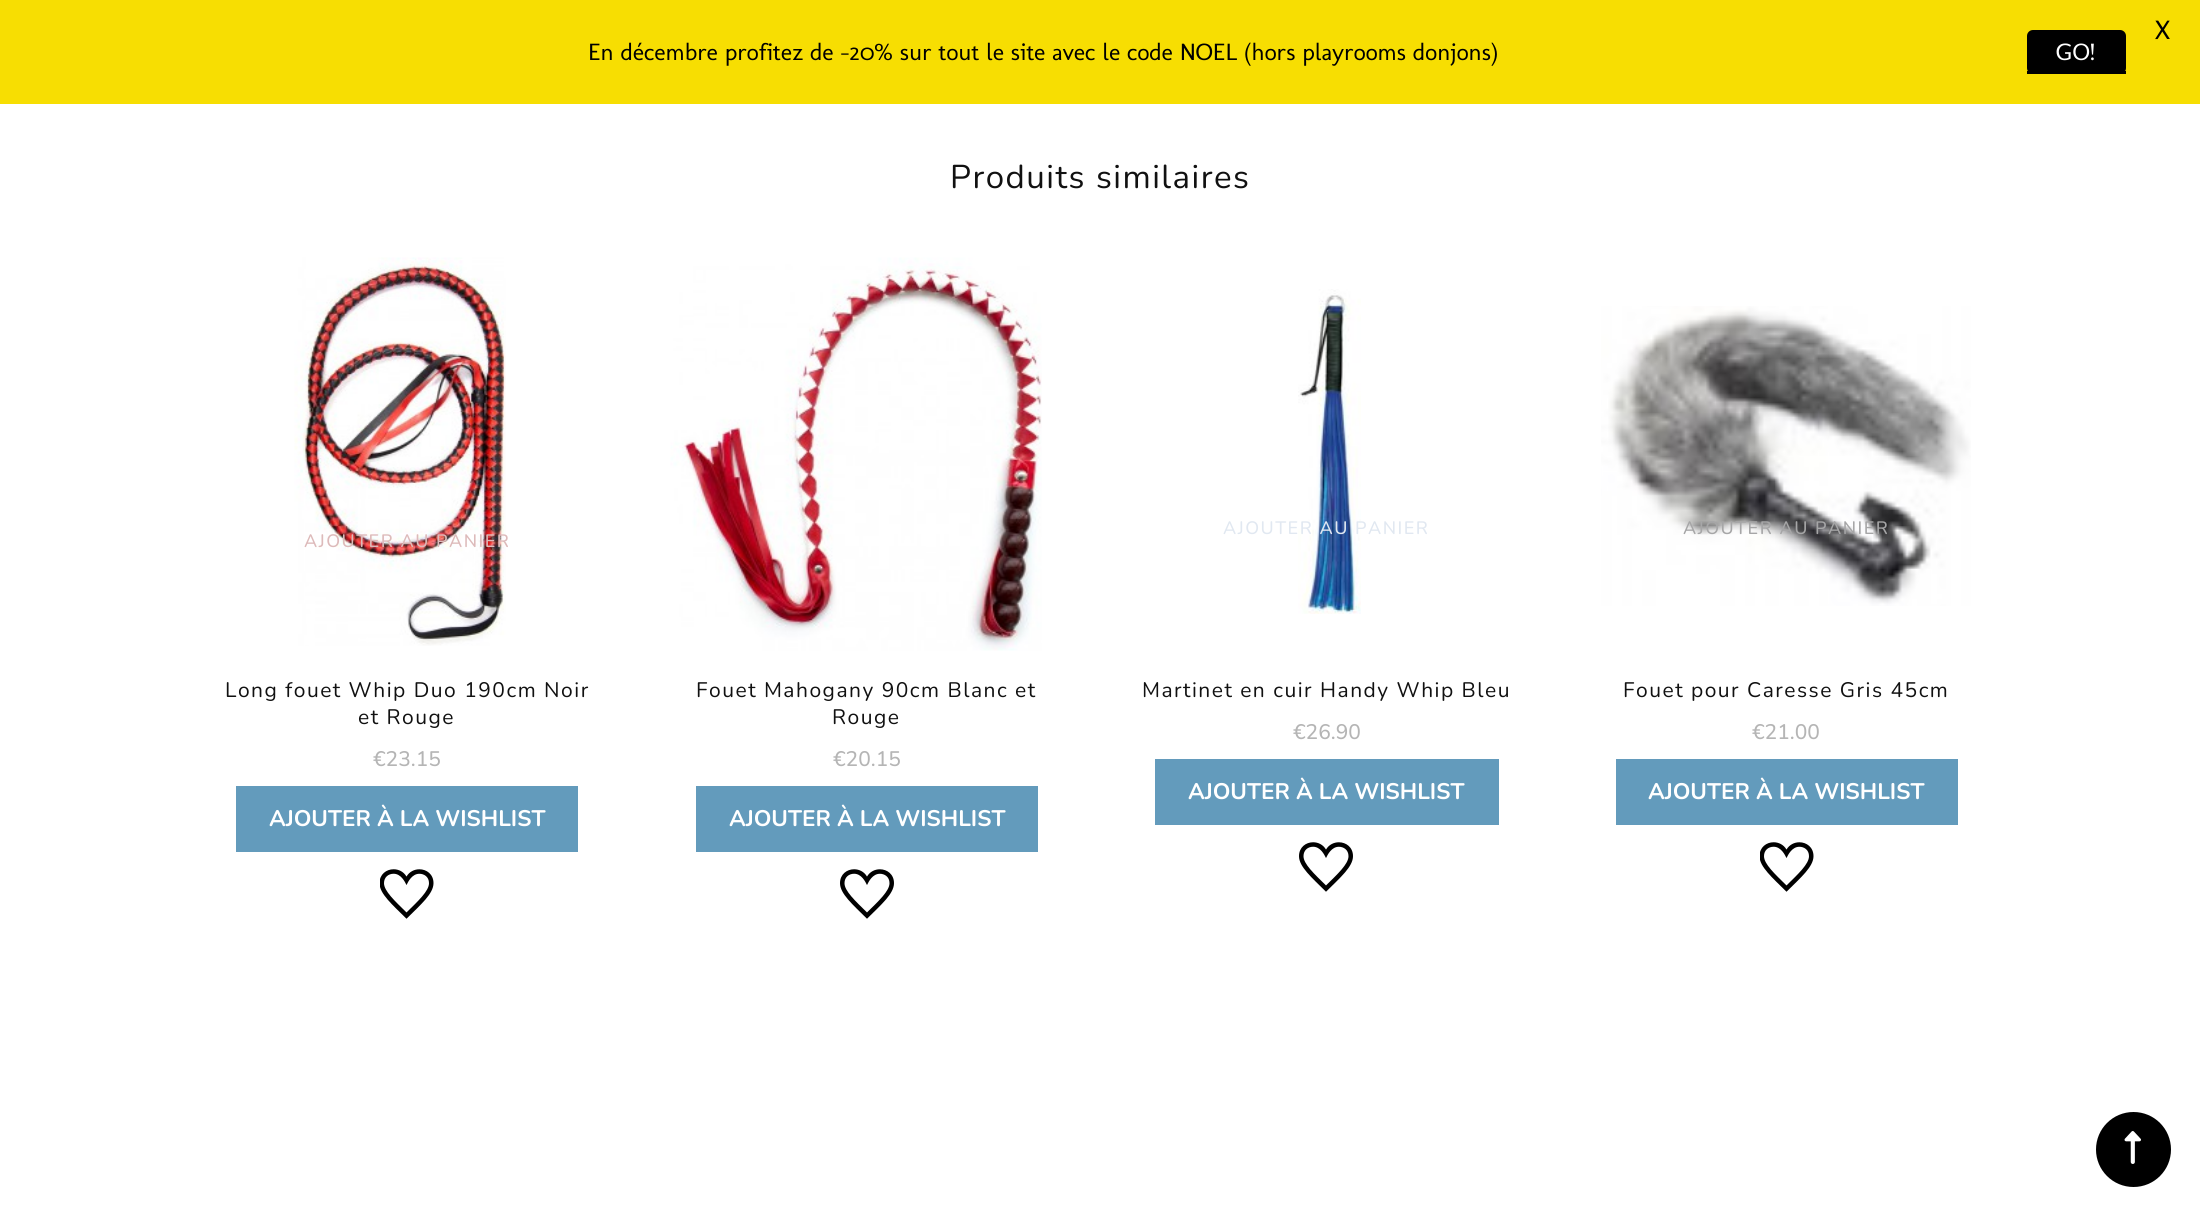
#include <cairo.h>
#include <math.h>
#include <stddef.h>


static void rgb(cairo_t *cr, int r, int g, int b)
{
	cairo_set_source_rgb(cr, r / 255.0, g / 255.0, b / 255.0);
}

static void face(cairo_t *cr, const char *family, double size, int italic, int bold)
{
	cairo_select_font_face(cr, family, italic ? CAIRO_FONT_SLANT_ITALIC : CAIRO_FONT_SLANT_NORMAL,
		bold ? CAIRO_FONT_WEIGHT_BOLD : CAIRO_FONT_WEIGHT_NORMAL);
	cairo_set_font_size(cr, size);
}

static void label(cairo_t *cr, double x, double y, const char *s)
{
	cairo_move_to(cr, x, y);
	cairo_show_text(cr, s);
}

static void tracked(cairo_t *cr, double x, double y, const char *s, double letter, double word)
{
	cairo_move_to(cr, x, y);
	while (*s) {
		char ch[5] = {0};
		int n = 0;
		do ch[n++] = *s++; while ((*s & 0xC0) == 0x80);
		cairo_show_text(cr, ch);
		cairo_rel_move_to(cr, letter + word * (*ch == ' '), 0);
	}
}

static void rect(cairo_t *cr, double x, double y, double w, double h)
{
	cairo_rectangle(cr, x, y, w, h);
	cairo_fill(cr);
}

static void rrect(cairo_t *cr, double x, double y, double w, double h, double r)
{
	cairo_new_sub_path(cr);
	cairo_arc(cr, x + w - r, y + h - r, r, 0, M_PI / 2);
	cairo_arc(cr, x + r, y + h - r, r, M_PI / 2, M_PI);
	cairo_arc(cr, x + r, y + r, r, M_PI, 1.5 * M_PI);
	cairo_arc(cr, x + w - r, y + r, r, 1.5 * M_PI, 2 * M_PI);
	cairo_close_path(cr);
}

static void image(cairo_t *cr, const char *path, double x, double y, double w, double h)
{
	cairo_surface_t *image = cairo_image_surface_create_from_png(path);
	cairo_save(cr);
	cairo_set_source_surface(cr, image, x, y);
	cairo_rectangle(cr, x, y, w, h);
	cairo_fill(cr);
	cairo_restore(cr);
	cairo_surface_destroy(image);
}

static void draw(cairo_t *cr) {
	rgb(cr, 255, 255, 255);
	cairo_paint(cr);
	rgb(cr, 247, 222, 2);
	rect(cr, 0, 0, 2200, 104);
	face(cr, "Molengo", 27, 0, 0);
	rgb(cr, 0, 0, 0);
	label(cr, 2154, 39, "X");
	face(cr, "Molengo", 24, 0, 0);
	label(cr, 588, 60, "En décembre profitez de -20% sur tout le site avec le code NOEL (hors playrooms donjons)");
	rrect(cr, 2027, 30, 99, 44, 6);
	cairo_fill(cr);
	rgb(cr, 255, 255, 255);
	label(cr, 2056, 60, "GO!");
	rgb(cr, 0, 0, 0);
	rect(cr, 2027, 71, 99, 3);
	face(cr, "Nunito", 33, 0, 0);
	rgb(cr, 17, 17, 17);
	tracked(cr, 950, 188, "Produits similaires", 1.5, 0);
	image(cr, "image0.png", 294, 257, 212, 389);
	face(cr, "Nunito Medium", 18, 0, 0);
	rgb(cr, 221, 186, 186);
	tracked(cr, 304, 547, "AJOUTER AU PANIER", 1.5, 0);
	face(cr, "Nunito", 21, 0, 0);
	rgb(cr, 17, 17, 17);
	tracked(cr, 225, 697, "Long fouet Whip Duo 190cm Noir", 1.5, 0);
	tracked(cr, 358, 724, "et Rouge", 1.5, 0);
	face(cr, "Nunito Medium", 21, 0, 0);
	rgb(cr, 181, 181, 181);
	label(cr, 373, 766, "€23.15");
	rgb(cr, 99, 155, 188);
	rect(cr, 236, 786, 342, 66);
	face(cr, "Nunito", 22.5, 0, 1);
	rgb(cr, 255, 255, 255);
	label(cr, 269, 826, "AJOUTER À LA WISHLIST");
	image(cr, "image1.png", 380, 869, 54, 50);
	image(cr, "image2.png", 670, 257, 372, 394);
	face(cr, "Nunito", 21, 0, 0);
	rgb(cr, 17, 17, 17);
	tracked(cr, 696, 697, "Fouet Mahogany 90cm Blanc et", 1.5, 0);
	tracked(cr, 832, 724, "Rouge", 1.5, 0);
	face(cr, "Nunito Medium", 21, 0, 0);
	rgb(cr, 181, 181, 181);
	label(cr, 833, 766, "€20.15");
	rgb(cr, 99, 155, 188);
	rect(cr, 696, 786, 342, 66);
	face(cr, "Nunito", 22.5, 0, 1);
	rgb(cr, 255, 255, 255);
	label(cr, 729, 826, "AJOUTER À LA WISHLIST");
	image(cr, "image3.png", 840, 869, 54, 50);
	image(cr, "image4.png", 1298, 289, 63, 325);
	face(cr, "Nunito Medium", 18, 0, 0);
	rgb(cr, 225, 232, 241);
	tracked(cr, 1223, 534, "AJOUTER AU PANIER", 1.5, 0);
	face(cr, "Nunito", 21, 0, 0);
	rgb(cr, 17, 17, 17);
	tracked(cr, 1142, 697, "Martinet en cuir Handy Whip Bleu", 1.5, 0);
	face(cr, "Nunito Medium", 21, 0, 0);
	rgb(cr, 181, 181, 181);
	label(cr, 1293, 739, "€26.90");
	rgb(cr, 99, 155, 188);
	rect(cr, 1155, 759, 344, 66);
	face(cr, "Nunito", 22.5, 0, 1);
	rgb(cr, 255, 255, 255);
	label(cr, 1188, 799, "AJOUTER À LA WISHLIST");
	image(cr, "image3.png", 1299, 842, 54, 50);
	image(cr, "image5.png", 1601, 306, 370, 300);
	face(cr, "Nunito Medium", 18, 0, 0);
	rgb(cr, 166, 166, 167);
	tracked(cr, 1683, 534, "AJOUTER AU PANIER", 1.5, 0);
	face(cr, "Nunito", 21, 0, 0);
	rgb(cr, 17, 17, 17);
	tracked(cr, 1623, 697, "Fouet pour Caresse Gris 45cm", 1.5, 0);
	face(cr, "Nunito Medium", 21, 0, 0);
	rgb(cr, 181, 181, 181);
	label(cr, 1752, 739, "€21.00");
	rgb(cr, 99, 155, 188);
	rect(cr, 1616, 759, 342, 66);
	face(cr, "Nunito", 22.5, 0, 1);
	rgb(cr, 255, 255, 255);
	label(cr, 1648, 799, "AJOUTER À LA WISHLIST");
	image(cr, "image1.png", 1760, 842, 54, 50);
	rgb(cr, 0, 0, 0);
	cairo_arc(cr, 2133.5, 1149.5, 37.5, 0, 2 * M_PI);
	cairo_fill(cr);
	image(cr, "image6.png", 2124, 1131, 17, 33);
}

int main(void) {
	cairo_surface_t *surface = cairo_image_surface_create(CAIRO_FORMAT_RGB24, 2200, 1216);
	cairo_t *cr = cairo_create(surface);
	cairo_font_options_t *options = cairo_font_options_create();
	cairo_font_options_set_hint_metrics(options, CAIRO_HINT_METRICS_OFF);
	cairo_font_options_set_hint_style(options, CAIRO_HINT_STYLE_NONE);
	cairo_set_font_options(cr, options);
	cairo_set_miter_limit(cr, 4);
	draw(cr);
	cairo_surface_write_to_png(surface, "render.png");
	cairo_font_options_destroy(options);
	cairo_destroy(cr);
	cairo_surface_destroy(surface);
	return 0;
}
